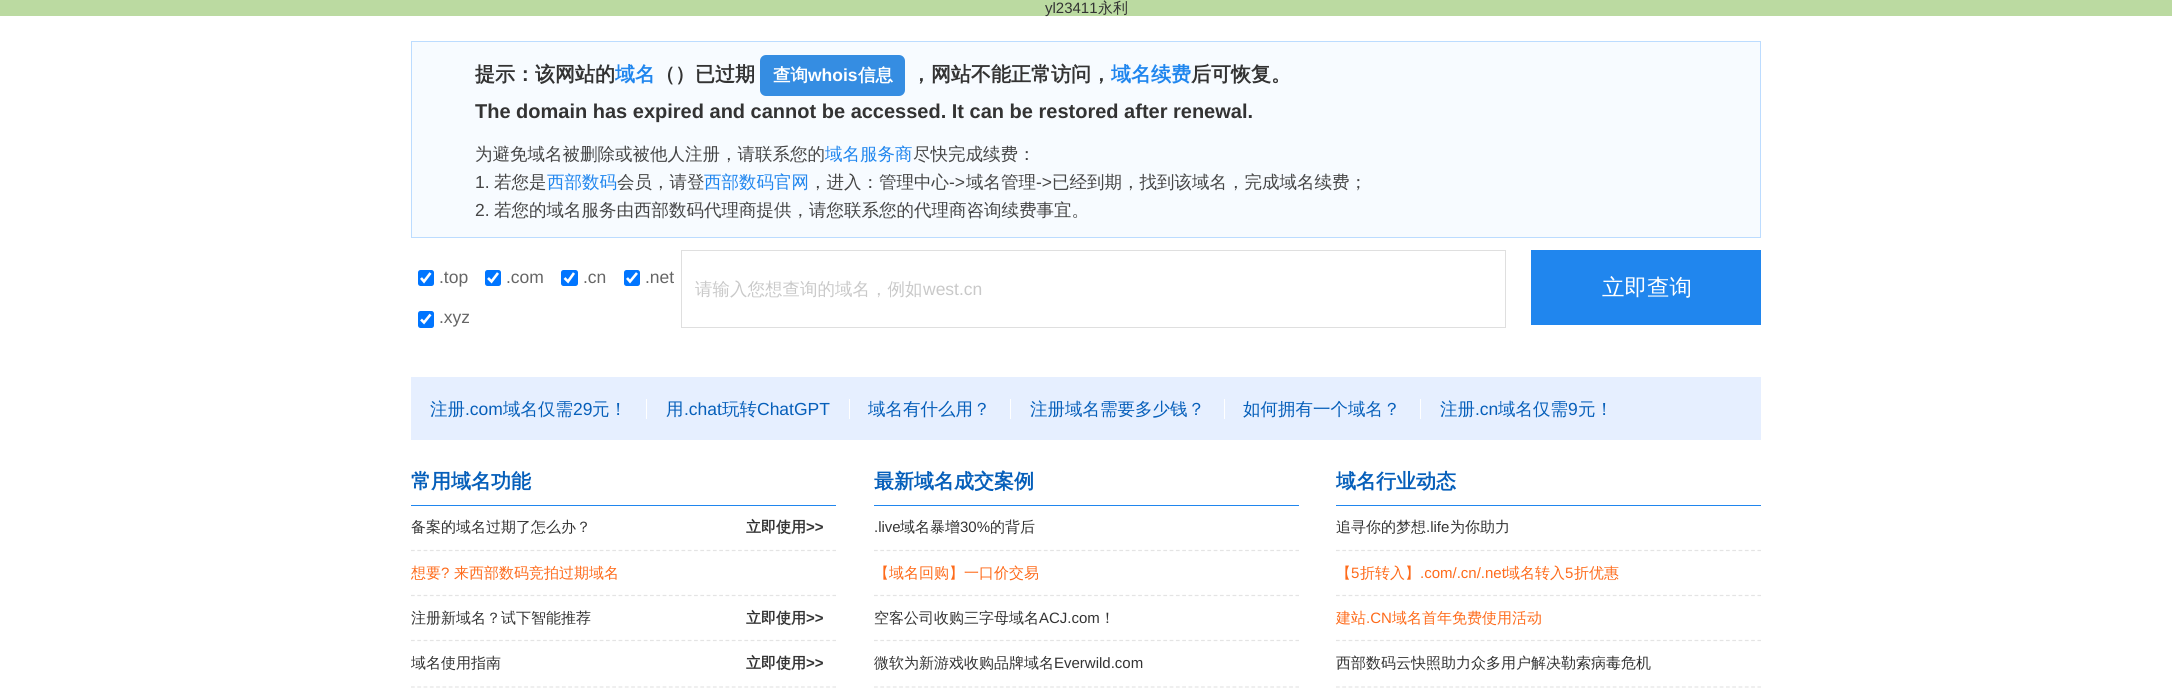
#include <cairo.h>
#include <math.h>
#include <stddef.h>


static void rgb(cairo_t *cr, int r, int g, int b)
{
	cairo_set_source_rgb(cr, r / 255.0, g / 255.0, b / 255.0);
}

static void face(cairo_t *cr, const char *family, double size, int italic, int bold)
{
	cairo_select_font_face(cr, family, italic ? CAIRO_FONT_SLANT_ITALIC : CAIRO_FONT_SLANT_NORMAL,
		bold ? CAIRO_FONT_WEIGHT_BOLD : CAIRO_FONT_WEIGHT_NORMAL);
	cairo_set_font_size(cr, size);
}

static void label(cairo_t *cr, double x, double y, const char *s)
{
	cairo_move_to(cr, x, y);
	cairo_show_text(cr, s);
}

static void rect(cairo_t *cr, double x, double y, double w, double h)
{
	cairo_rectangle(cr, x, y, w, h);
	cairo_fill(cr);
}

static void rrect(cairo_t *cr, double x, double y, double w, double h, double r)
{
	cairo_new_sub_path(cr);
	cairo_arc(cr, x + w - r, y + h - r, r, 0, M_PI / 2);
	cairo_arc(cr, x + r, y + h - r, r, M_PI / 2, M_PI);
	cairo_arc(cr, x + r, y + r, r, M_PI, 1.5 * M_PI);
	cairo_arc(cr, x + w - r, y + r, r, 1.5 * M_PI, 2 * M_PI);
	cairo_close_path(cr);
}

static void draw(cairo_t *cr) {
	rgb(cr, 255, 255, 255);
	cairo_paint(cr);
	rgb(cr, 187, 218, 161);
	rect(cr, 0, 0, 2172, 16);
	face(cr, "Liberation Sans", 15, 0, 0);
	rgb(cr, 51, 51, 51);
	label(cr, 1045, 13, "yl23411");
	face(cr, "WenQuanYi Zen Hei Medium", 15, 0, 0);
	label(cr, 1098, 13, "永利");
	rgb(cr, 247, 251, 255);
	cairo_rectangle(cr, 411.5, 41.5, 1349, 196);
	cairo_fill_preserve(cr);
	rgb(cr, 188, 220, 255);
	cairo_set_line_width(cr, 1);
	cairo_stroke(cr);
	face(cr, "WenQuanYi Zen Hei", 20, 0, 1);
	rgb(cr, 51, 51, 51);
	label(cr, 475, 81, "提示：该网站的");
	rgb(cr, 32, 134, 238);
	label(cr, 615, 81, "域名");
	rgb(cr, 51, 51, 51);
	label(cr, 655, 81, "（）已过期");
	rgb(cr, 53, 141, 226);
	rrect(cr, 760, 55, 145, 41, 6);
	cairo_fill(cr);
	face(cr, "WenQuanYi Zen Hei", 17.5, 0, 1);
	rgb(cr, 255, 255, 255);
	label(cr, 773, 81, "查询");
	face(cr, "Liberation Sans", 17.5, 0, 1);
	label(cr, 808, 81, "whois");
	face(cr, "WenQuanYi Zen Hei", 17.5, 0, 1);
	label(cr, 858, 81, "信息");
	face(cr, "WenQuanYi Zen Hei", 20, 0, 1);
	rgb(cr, 51, 51, 51);
	label(cr, 911, 81, "，网站不能正常访问，");
	rgb(cr, 32, 134, 238);
	label(cr, 1111, 81, "域名续费");
	rgb(cr, 51, 51, 51);
	label(cr, 1191, 81, "后可恢复。");
	face(cr, "Liberation Sans", 20, 0, 1);
	label(cr, 475, 118, "The domain has expired and cannot be accessed. It can be restored after renewal.");
	face(cr, "WenQuanYi Zen Hei Medium", 17.5, 0, 0);
	rgb(cr, 69, 69, 69);
	label(cr, 475, 160, "为避免域名被删除或被他人注册，请联系您的");
	rgb(cr, 32, 134, 238);
	label(cr, 825, 160, "域名服务商");
	rgb(cr, 69, 69, 69);
	label(cr, 913, 160, "尽快完成续费：");
	face(cr, "Liberation Sans", 17.5, 0, 0);
	label(cr, 475, 188, "1.");
	face(cr, "WenQuanYi Zen Hei Medium", 17.5, 0, 0);
	label(cr, 494, 188, "若您是");
	rgb(cr, 32, 134, 238);
	label(cr, 547, 188, "西部数码");
	rgb(cr, 69, 69, 69);
	label(cr, 617, 188, "会员，请登");
	rgb(cr, 32, 134, 238);
	label(cr, 704, 188, "西部数码官网");
	rgb(cr, 69, 69, 69);
	label(cr, 809, 188, "，进入：管理中心");
	face(cr, "Liberation Sans", 17.5, 0, 0);
	label(cr, 949, 188, "->");
	face(cr, "WenQuanYi Zen Hei Medium", 17.5, 0, 0);
	label(cr, 966, 188, "域名管理");
	face(cr, "Liberation Sans", 17.5, 0, 0);
	label(cr, 1036, 188, "->");
	face(cr, "WenQuanYi Zen Hei Medium", 17.5, 0, 0);
	label(cr, 1052, 188, "已经到期，找到该域名，完成域名续费；");
	face(cr, "Liberation Sans", 17.5, 0, 0);
	label(cr, 475, 216, "2.");
	face(cr, "WenQuanYi Zen Hei Medium", 17.5, 0, 0);
	label(cr, 494, 216, "若您的域名服务由西部数码代理商提供，请您联系您的代理商咨询续费事宜。");
	rgb(cr, 0, 117, 255);
	rrect(cr, 418, 270, 16, 16, 2.5);
	cairo_fill(cr);
	cairo_new_path(cr);
	cairo_move_to(cr, 421, 278);
	cairo_line_to(cr, 424, 281.5);
	cairo_line_to(cr, 430.5, 273);
	rgb(cr, 255, 255, 255);
	cairo_set_line_width(cr, 2.6);
	cairo_stroke(cr);
	face(cr, "Liberation Sans", 17.5, 0, 0);
	rgb(cr, 102, 102, 102);
	label(cr, 439, 283, ".top");
	rgb(cr, 0, 117, 255);
	rrect(cr, 485, 270, 16, 16, 2.5);
	cairo_fill(cr);
	cairo_new_path(cr);
	cairo_move_to(cr, 488, 278);
	cairo_line_to(cr, 491.5, 281.5);
	cairo_line_to(cr, 498, 273);
	rgb(cr, 255, 255, 255);
	cairo_stroke(cr);
	rgb(cr, 102, 102, 102);
	label(cr, 506, 283, ".com");
	rgb(cr, 0, 117, 255);
	rrect(cr, 561, 270, 17, 16, 2.5);
	cairo_fill(cr);
	cairo_new_path(cr);
	cairo_move_to(cr, 564.5, 278);
	cairo_line_to(cr, 568, 281.5);
	cairo_line_to(cr, 574, 273);
	rgb(cr, 255, 255, 255);
	cairo_stroke(cr);
	rgb(cr, 102, 102, 102);
	label(cr, 583, 283, ".cn");
	rgb(cr, 0, 117, 255);
	rrect(cr, 624, 270, 16, 16, 2.5);
	cairo_fill(cr);
	cairo_new_path(cr);
	cairo_move_to(cr, 627, 278);
	cairo_line_to(cr, 630, 281.5);
	cairo_line_to(cr, 637, 273);
	rgb(cr, 255, 255, 255);
	cairo_stroke(cr);
	rgb(cr, 102, 102, 102);
	label(cr, 645, 283, ".net");
	rgb(cr, 0, 117, 255);
	rrect(cr, 418, 311, 16, 17, 2.5);
	cairo_fill(cr);
	cairo_new_path(cr);
	cairo_move_to(cr, 421, 319.5);
	cairo_line_to(cr, 424, 322.5);
	cairo_line_to(cr, 430.5, 314.5);
	rgb(cr, 255, 255, 255);
	cairo_stroke(cr);
	rgb(cr, 102, 102, 102);
	label(cr, 439, 323, ".xyz");
	cairo_rectangle(cr, 681.5, 250.5, 824, 77);
	rgb(cr, 223, 223, 223);
	cairo_set_line_width(cr, 1);
	cairo_stroke(cr);
	face(cr, "WenQuanYi Zen Hei Medium", 17.5, 0, 0);
	rgb(cr, 201, 201, 201);
	label(cr, 695, 295, "请输入您想查询的域名，例如");
	face(cr, "Liberation Sans", 17.5, 0, 0);
	label(cr, 923, 295, "west.cn");
	rgb(cr, 32, 134, 238);
	rect(cr, 1531, 250, 230, 75);
	face(cr, "WenQuanYi Zen Hei Medium", 22.5, 0, 0);
	rgb(cr, 255, 255, 255);
	label(cr, 1602, 295, "立即查询");
	rgb(cr, 230, 239, 255);
	rect(cr, 411, 377, 1350, 63);
	face(cr, "WenQuanYi Zen Hei Medium", 17.5, 0, 0);
	rgb(cr, 6, 95, 186);
	label(cr, 430, 415, "注册");
	face(cr, "Liberation Sans", 17.5, 0, 0);
	label(cr, 465, 415, ".com");
	face(cr, "WenQuanYi Zen Hei Medium", 17.5, 0, 0);
	label(cr, 503, 415, "域名仅需");
	face(cr, "Liberation Sans", 17.5, 0, 0);
	label(cr, 573, 415, "29");
	face(cr, "WenQuanYi Zen Hei Medium", 17.5, 0, 0);
	label(cr, 592, 415, "元！");
	rgb(cr, 255, 255, 255);
	rect(cr, 646, 399, 1, 20);
	rgb(cr, 6, 95, 186);
	label(cr, 666, 415, "用");
	face(cr, "Liberation Sans", 17.5, 0, 0);
	label(cr, 684, 415, ".chat");
	face(cr, "WenQuanYi Zen Hei Medium", 17.5, 0, 0);
	label(cr, 722, 415, "玩转");
	face(cr, "Liberation Sans", 17.5, 0, 0);
	label(cr, 757, 415, "ChatGPT");
	rgb(cr, 255, 255, 255);
	rect(cr, 849, 399, 1, 20);
	face(cr, "WenQuanYi Zen Hei Medium", 17.5, 0, 0);
	rgb(cr, 6, 95, 186);
	label(cr, 868, 415, "域名有什么用？");
	rgb(cr, 255, 255, 255);
	rect(cr, 1010, 399, 1, 20);
	rgb(cr, 6, 95, 186);
	label(cr, 1030, 415, "注册域名需要多少钱？");
	rgb(cr, 255, 255, 255);
	rect(cr, 1224, 399, 1, 20);
	rgb(cr, 6, 95, 186);
	label(cr, 1243, 415, "如何拥有一个域名？");
	rgb(cr, 255, 255, 255);
	rect(cr, 1420, 399, 1, 20);
	rgb(cr, 6, 95, 186);
	label(cr, 1440, 415, "注册");
	face(cr, "Liberation Sans", 17.5, 0, 0);
	label(cr, 1475, 415, ".cn");
	face(cr, "WenQuanYi Zen Hei Medium", 17.5, 0, 0);
	label(cr, 1498, 415, "域名仅需");
	face(cr, "Liberation Sans", 17.5, 0, 0);
	label(cr, 1568, 415, "9");
	face(cr, "WenQuanYi Zen Hei Medium", 17.5, 0, 0);
	label(cr, 1578, 415, "元！");
	rgb(cr, 32, 134, 238);
	rect(cr, 411, 505, 425, 1);
	face(cr, "WenQuanYi Zen Hei", 20, 0, 1);
	rgb(cr, 6, 95, 186);
	label(cr, 411, 488, "常用域名功能");
	cairo_new_path(cr);
	cairo_move_to(cr, 411, 550.5);
	cairo_line_to(cr, 836, 550.5);
	rgb(cr, 228, 228, 228);
	cairo_set_line_width(cr, 1.2);
	cairo_set_dash(cr, (double[]){3.75, 2.54}, 2, 0);
	cairo_stroke(cr);
	face(cr, "WenQuanYi Zen Hei Medium", 15, 0, 0);
	rgb(cr, 51, 51, 51);
	label(cr, 411, 532, "备案的域名过期了怎么办？");
	face(cr, "WenQuanYi Zen Hei", 15, 0, 1);
	label(cr, 746, 532, "立即使用");
	face(cr, "Liberation Sans", 15, 0, 1);
	label(cr, 806, 532, ">>");
	cairo_new_path(cr);
	cairo_move_to(cr, 411, 595.5);
	cairo_line_to(cr, 836, 595.5);
	rgb(cr, 228, 228, 228);
	cairo_stroke(cr);
	face(cr, "WenQuanYi Zen Hei Medium", 15, 0, 0);
	rgb(cr, 254, 107, 27);
	label(cr, 411, 578, "想要");
	face(cr, "Liberation Sans", 15, 0, 0);
	label(cr, 441, 578, "?");
	face(cr, "WenQuanYi Zen Hei Medium", 15, 0, 0);
	label(cr, 454, 578, "来西部数码竞拍过期域名");
	cairo_new_path(cr);
	cairo_move_to(cr, 411, 640.5);
	cairo_line_to(cr, 836, 640.5);
	rgb(cr, 228, 228, 228);
	cairo_stroke(cr);
	rgb(cr, 51, 51, 51);
	label(cr, 411, 623, "注册新域名？试下智能推荐");
	face(cr, "WenQuanYi Zen Hei", 15, 0, 1);
	label(cr, 746, 623, "立即使用");
	face(cr, "Liberation Sans", 15, 0, 1);
	label(cr, 806, 623, ">>");
	cairo_new_path(cr);
	cairo_move_to(cr, 411, 687);
	cairo_line_to(cr, 836, 687);
	rgb(cr, 228, 228, 228);
	cairo_stroke(cr);
	face(cr, "WenQuanYi Zen Hei Medium", 15, 0, 0);
	rgb(cr, 51, 51, 51);
	label(cr, 411, 668, "域名使用指南");
	face(cr, "WenQuanYi Zen Hei", 15, 0, 1);
	label(cr, 746, 668, "立即使用");
	face(cr, "Liberation Sans", 15, 0, 1);
	label(cr, 806, 668, ">>");
	rgb(cr, 32, 134, 238);
	rect(cr, 874, 505, 425, 1);
	face(cr, "WenQuanYi Zen Hei", 20, 0, 1);
	rgb(cr, 6, 95, 186);
	label(cr, 874, 488, "最新域名成交案例");
	cairo_new_path(cr);
	cairo_move_to(cr, 874, 550.5);
	cairo_line_to(cr, 1299, 550.5);
	rgb(cr, 228, 228, 228);
	cairo_stroke(cr);
	face(cr, "Liberation Sans", 15, 0, 0);
	rgb(cr, 51, 51, 51);
	label(cr, 874, 532, ".live");
	face(cr, "WenQuanYi Zen Hei Medium", 15, 0, 0);
	label(cr, 900, 532, "域名暴增");
	face(cr, "Liberation Sans", 15, 0, 0);
	label(cr, 960, 532, "30%");
	face(cr, "WenQuanYi Zen Hei Medium", 15, 0, 0);
	label(cr, 990, 532, "的背后");
	cairo_new_path(cr);
	cairo_move_to(cr, 874, 595.5);
	cairo_line_to(cr, 1299, 595.5);
	rgb(cr, 228, 228, 228);
	cairo_stroke(cr);
	rgb(cr, 254, 107, 27);
	label(cr, 874, 578, "【域名回购】一口价交易");
	cairo_new_path(cr);
	cairo_move_to(cr, 874, 640.5);
	cairo_line_to(cr, 1299, 640.5);
	rgb(cr, 228, 228, 228);
	cairo_stroke(cr);
	rgb(cr, 51, 51, 51);
	label(cr, 874, 623, "空客公司收购三字母域名");
	face(cr, "Liberation Sans", 15, 0, 0);
	label(cr, 1039, 623, "ACJ.com");
	face(cr, "WenQuanYi Zen Hei Medium", 15, 0, 0);
	label(cr, 1100, 623, "！");
	cairo_new_path(cr);
	cairo_move_to(cr, 874, 687);
	cairo_line_to(cr, 1299, 687);
	rgb(cr, 228, 228, 228);
	cairo_stroke(cr);
	rgb(cr, 51, 51, 51);
	label(cr, 874, 668, "微软为新游戏收购品牌域名");
	face(cr, "Liberation Sans", 15, 0, 0);
	label(cr, 1054, 668, "Everwild.com");
	rgb(cr, 32, 134, 238);
	rect(cr, 1336, 505, 425, 1);
	face(cr, "WenQuanYi Zen Hei", 20, 0, 1);
	rgb(cr, 6, 95, 186);
	label(cr, 1336, 488, "域名行业动态");
	cairo_new_path(cr);
	cairo_move_to(cr, 1336, 550.5);
	cairo_line_to(cr, 1761, 550.5);
	rgb(cr, 228, 228, 228);
	cairo_stroke(cr);
	face(cr, "WenQuanYi Zen Hei Medium", 15, 0, 0);
	rgb(cr, 51, 51, 51);
	label(cr, 1336, 532, "追寻你的梦想");
	face(cr, "Liberation Sans", 15, 0, 0);
	label(cr, 1426, 532, ".life");
	face(cr, "WenQuanYi Zen Hei Medium", 15, 0, 0);
	label(cr, 1450, 532, "为你助力");
	cairo_new_path(cr);
	cairo_move_to(cr, 1336, 595.5);
	cairo_line_to(cr, 1761, 595.5);
	rgb(cr, 228, 228, 228);
	cairo_stroke(cr);
	rgb(cr, 254, 107, 27);
	label(cr, 1336, 578, "【");
	face(cr, "Liberation Sans", 15, 0, 0);
	label(cr, 1351, 578, "5");
	face(cr, "WenQuanYi Zen Hei Medium", 15, 0, 0);
	label(cr, 1360, 578, "折转入】");
	face(cr, "Liberation Sans", 15, 0, 0);
	label(cr, 1420, 578, ".com/.cn/.net");
	face(cr, "WenQuanYi Zen Hei Medium", 15, 0, 0);
	label(cr, 1505, 578, "域名转入");
	face(cr, "Liberation Sans", 15, 0, 0);
	label(cr, 1565, 578, "5");
	face(cr, "WenQuanYi Zen Hei Medium", 15, 0, 0);
	label(cr, 1574, 578, "折优惠");
	cairo_new_path(cr);
	cairo_move_to(cr, 1336, 640.5);
	cairo_line_to(cr, 1761, 640.5);
	rgb(cr, 228, 228, 228);
	cairo_stroke(cr);
	rgb(cr, 254, 107, 27);
	label(cr, 1336, 623, "建站");
	face(cr, "Liberation Sans", 15, 0, 0);
	label(cr, 1366, 623, ".CN");
	face(cr, "WenQuanYi Zen Hei Medium", 15, 0, 0);
	label(cr, 1392, 623, "域名首年免费使用活动");
	cairo_new_path(cr);
	cairo_move_to(cr, 1336, 687);
	cairo_line_to(cr, 1761, 687);
	rgb(cr, 228, 228, 228);
	cairo_stroke(cr);
	rgb(cr, 51, 51, 51);
	label(cr, 1336, 668, "西部数码云快照助力众多用户解决勒索病毒危机");
}

int main(void) {
	cairo_surface_t *surface = cairo_image_surface_create(CAIRO_FORMAT_RGB24, 2172, 697);
	cairo_t *cr = cairo_create(surface);
	cairo_font_options_t *options = cairo_font_options_create();
	cairo_font_options_set_hint_metrics(options, CAIRO_HINT_METRICS_OFF);
	cairo_font_options_set_hint_style(options, CAIRO_HINT_STYLE_NONE);
	cairo_set_font_options(cr, options);
	cairo_set_miter_limit(cr, 4);
	draw(cr);
	cairo_surface_write_to_png(surface, "render.png");
	cairo_font_options_destroy(options);
	cairo_destroy(cr);
	cairo_surface_destroy(surface);
	return 0;
}
